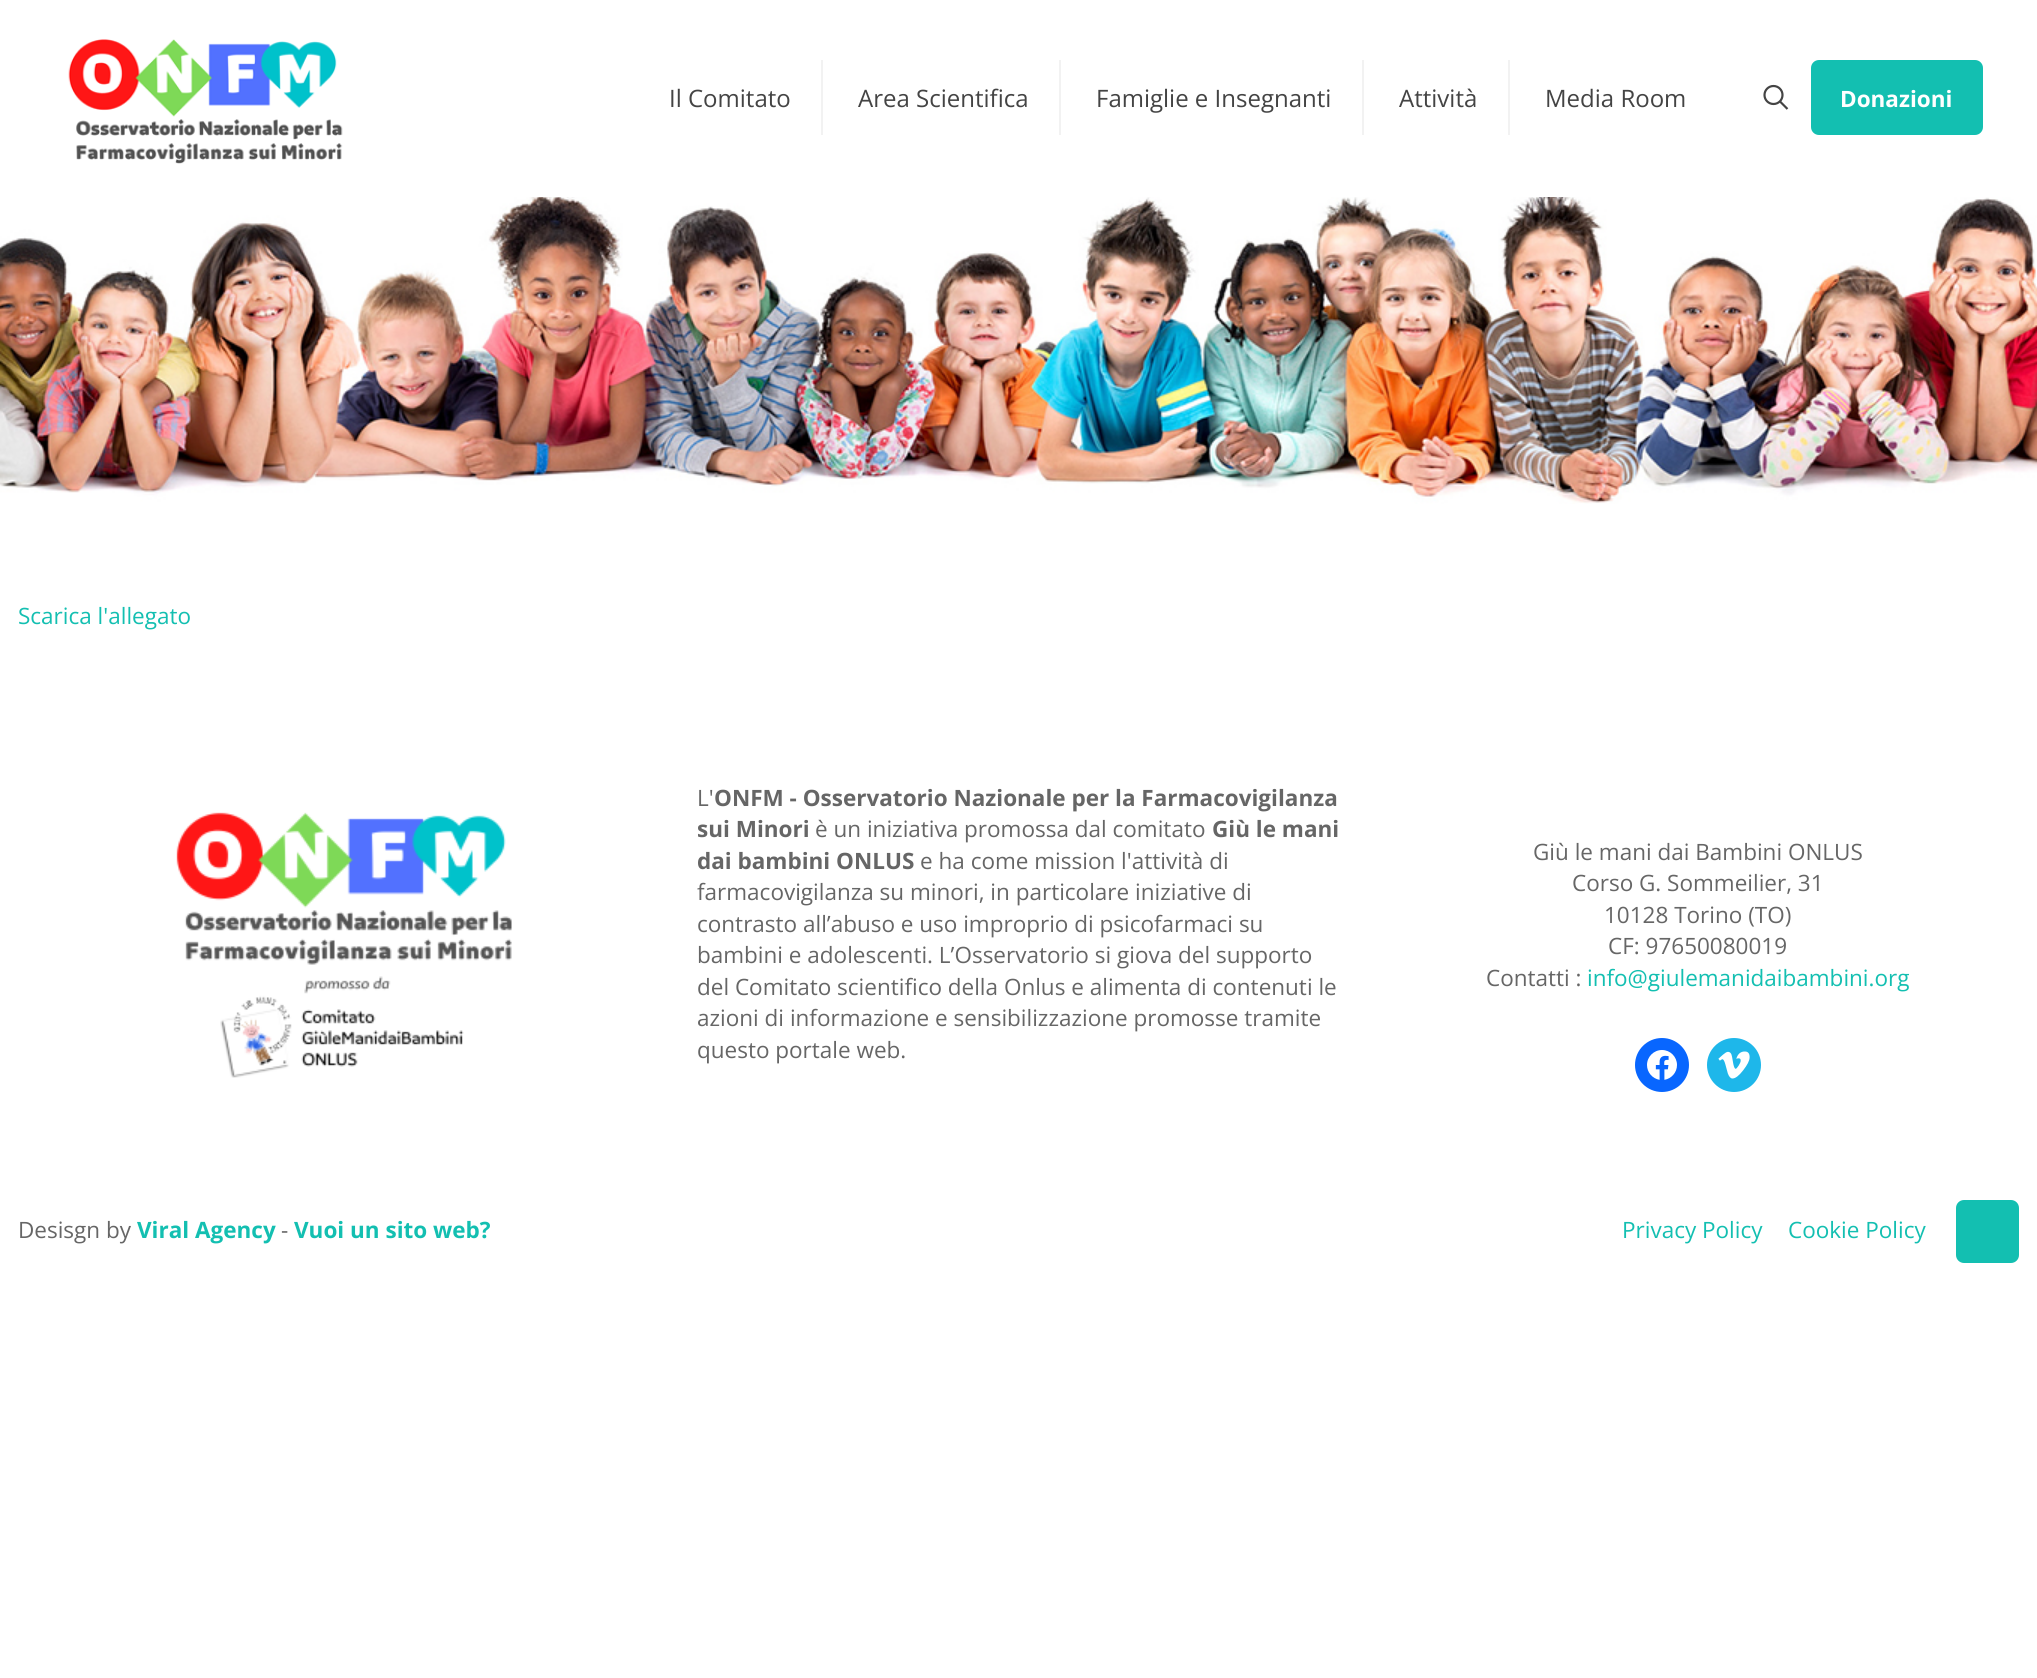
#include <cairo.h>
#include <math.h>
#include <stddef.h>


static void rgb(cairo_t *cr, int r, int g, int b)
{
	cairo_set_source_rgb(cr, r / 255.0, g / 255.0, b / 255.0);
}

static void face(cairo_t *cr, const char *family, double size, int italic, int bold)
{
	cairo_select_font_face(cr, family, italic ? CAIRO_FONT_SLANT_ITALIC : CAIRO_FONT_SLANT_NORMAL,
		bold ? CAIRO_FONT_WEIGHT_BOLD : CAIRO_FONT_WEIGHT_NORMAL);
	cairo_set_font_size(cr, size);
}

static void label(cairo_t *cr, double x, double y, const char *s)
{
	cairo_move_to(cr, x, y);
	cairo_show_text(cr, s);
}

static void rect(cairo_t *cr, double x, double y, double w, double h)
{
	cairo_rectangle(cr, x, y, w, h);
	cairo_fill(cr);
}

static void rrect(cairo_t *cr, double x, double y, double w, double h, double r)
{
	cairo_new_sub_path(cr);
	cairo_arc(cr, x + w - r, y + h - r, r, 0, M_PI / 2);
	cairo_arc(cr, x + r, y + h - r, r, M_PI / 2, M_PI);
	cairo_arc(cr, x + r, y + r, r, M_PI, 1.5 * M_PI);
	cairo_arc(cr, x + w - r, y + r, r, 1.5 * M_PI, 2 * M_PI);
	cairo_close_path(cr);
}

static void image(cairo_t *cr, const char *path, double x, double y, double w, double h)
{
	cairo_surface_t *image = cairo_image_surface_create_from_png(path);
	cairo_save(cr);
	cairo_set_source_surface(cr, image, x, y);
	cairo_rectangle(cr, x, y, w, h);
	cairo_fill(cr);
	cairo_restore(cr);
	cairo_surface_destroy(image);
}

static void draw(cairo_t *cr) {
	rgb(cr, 255, 255, 255);
	cairo_paint(cr);
	image(cr, "image0.png", 0, 197, 2037, 307);
	image(cr, "image1.png", 68, 39, 275, 125);
	rgb(cr, 242, 242, 242);
	rect(cr, 821, 60, 2, 75);
	face(cr, "Open Sans", 24, 0, 0);
	rgb(cr, 68, 68, 68);
	label(cr, 669, 107, "Il Comitato");
	rgb(cr, 242, 242, 242);
	rect(cr, 1059, 60, 2, 75);
	rgb(cr, 68, 68, 68);
	label(cr, 858, 107, "Area Scientifica");
	rgb(cr, 242, 242, 242);
	rect(cr, 1362, 60, 2, 75);
	rgb(cr, 68, 68, 68);
	label(cr, 1096, 107, "Famiglie e Insegnanti");
	rgb(cr, 242, 242, 242);
	rect(cr, 1508, 60, 2, 75);
	rgb(cr, 68, 68, 68);
	label(cr, 1399, 107, "Attività");
	label(cr, 1545, 107, "Media Room");
	cairo_new_path(cr);
	cairo_arc(cr, 1773.5, 95, 9, 0, 2 * M_PI);
	cairo_set_line_width(cr, 2.2);
	cairo_stroke(cr);
	cairo_new_path(cr);
	cairo_move_to(cr, 1780, 101.5);
	cairo_line_to(cr, 1787.5, 109);
	cairo_stroke(cr);
	rgb(cr, 19, 191, 177);
	rrect(cr, 1811, 60, 172, 75, 8);
	cairo_fill(cr);
	face(cr, "Open Sans", 22.5, 0, 1);
	rgb(cr, 255, 255, 255);
	label(cr, 1840, 107, "Donazioni");
	face(cr, "Open Sans", 22.5, 0, 0);
	rgb(cr, 19, 191, 177);
	label(cr, 18, 624, "Scarica l'allegato");
	image(cr, "image2.png", 176, 812, 336, 266);
	rgb(cr, 102, 102, 102);
	label(cr, 697, 806, "L'");
	face(cr, "Open Sans", 22.5, 0, 1);
	label(cr, 714, 806, "ONFM - Osservatorio Nazionale per la Farmacovigilanza");
	label(cr, 697, 837, "sui Minori");
	face(cr, "Open Sans", 22.5, 0, 0);
	label(cr, 815, 837, "è un iniziativa promossa dal comitato");
	face(cr, "Open Sans", 22.5, 0, 1);
	label(cr, 1212, 837, "Giù le mani");
	label(cr, 697, 869, "dai bambini ONLUS");
	face(cr, "Open Sans", 22.5, 0, 0);
	label(cr, 920, 869, "e ha come mission l'attività di");
	label(cr, 697, 900, "farmacovigilanza su minori, in particolare iniziative di");
	label(cr, 697, 932, "contrasto all’abuso e uso improprio di psicofarmaci su");
	label(cr, 697, 963, "bambini e adolescenti. L’Osservatorio si giova del supporto");
	label(cr, 697, 995, "del Comitato scientifico della Onlus e alimenta di contenuti le");
	label(cr, 697, 1026, "azioni di informazione e sensibilizzazione promosse tramite");
	label(cr, 697, 1058, "questo portale web.");
	label(cr, 1533, 860, "Giù le mani dai Bambini ONLUS");
	label(cr, 1572, 891, "Corso G. Sommeilier, 31");
	label(cr, 1604, 923, "10128 Torino (TO)");
	label(cr, 1608, 954, "CF: 97650080019");
	label(cr, 1486, 986, "Contatti :");
	rgb(cr, 19, 191, 177);
	label(cr, 1587, 986, "info@giulemanidaibambini.org");
	rgb(cr, 8, 102, 255);
	cairo_new_path(cr);
	cairo_arc(cr, 1662, 1065, 27, 0, 2 * M_PI);
	cairo_fill(cr);
	image(cr, "image3.png", 1647, 1050, 30, 30);
	rgb(cr, 30, 183, 234);
	cairo_arc(cr, 1734, 1065, 27, 0, 2 * M_PI);
	cairo_fill(cr);
	image(cr, "image4.png", 1718, 1051, 32, 28);
	rgb(cr, 102, 102, 102);
	label(cr, 18, 1238, "Desisgn by");
	face(cr, "Open Sans", 22.5, 0, 1);
	rgb(cr, 19, 191, 177);
	label(cr, 137, 1238, "Viral Agency");
	face(cr, "Open Sans", 22.5, 0, 0);
	rgb(cr, 102, 102, 102);
	label(cr, 281, 1238, "-");
	face(cr, "Open Sans", 22.5, 0, 1);
	rgb(cr, 19, 191, 177);
	label(cr, 294, 1238, "Vuoi un sito web?");
	face(cr, "Open Sans", 22.5, 0, 0);
	label(cr, 1622, 1238, "Privacy Policy");
	label(cr, 1788, 1238, "Cookie Policy");
	rrect(cr, 1956, 1200, 63, 63, 8);
	cairo_fill(cr);
}

int main(void) {
	cairo_surface_t *surface = cairo_image_surface_create(CAIRO_FORMAT_RGB24, 2037, 1678);
	cairo_t *cr = cairo_create(surface);
	cairo_font_options_t *options = cairo_font_options_create();
	cairo_font_options_set_hint_metrics(options, CAIRO_HINT_METRICS_OFF);
	cairo_font_options_set_hint_style(options, CAIRO_HINT_STYLE_NONE);
	cairo_set_font_options(cr, options);
	cairo_set_miter_limit(cr, 4);
	draw(cr);
	cairo_surface_write_to_png(surface, "render.png");
	cairo_font_options_destroy(options);
	cairo_destroy(cr);
	cairo_surface_destroy(surface);
	return 0;
}
